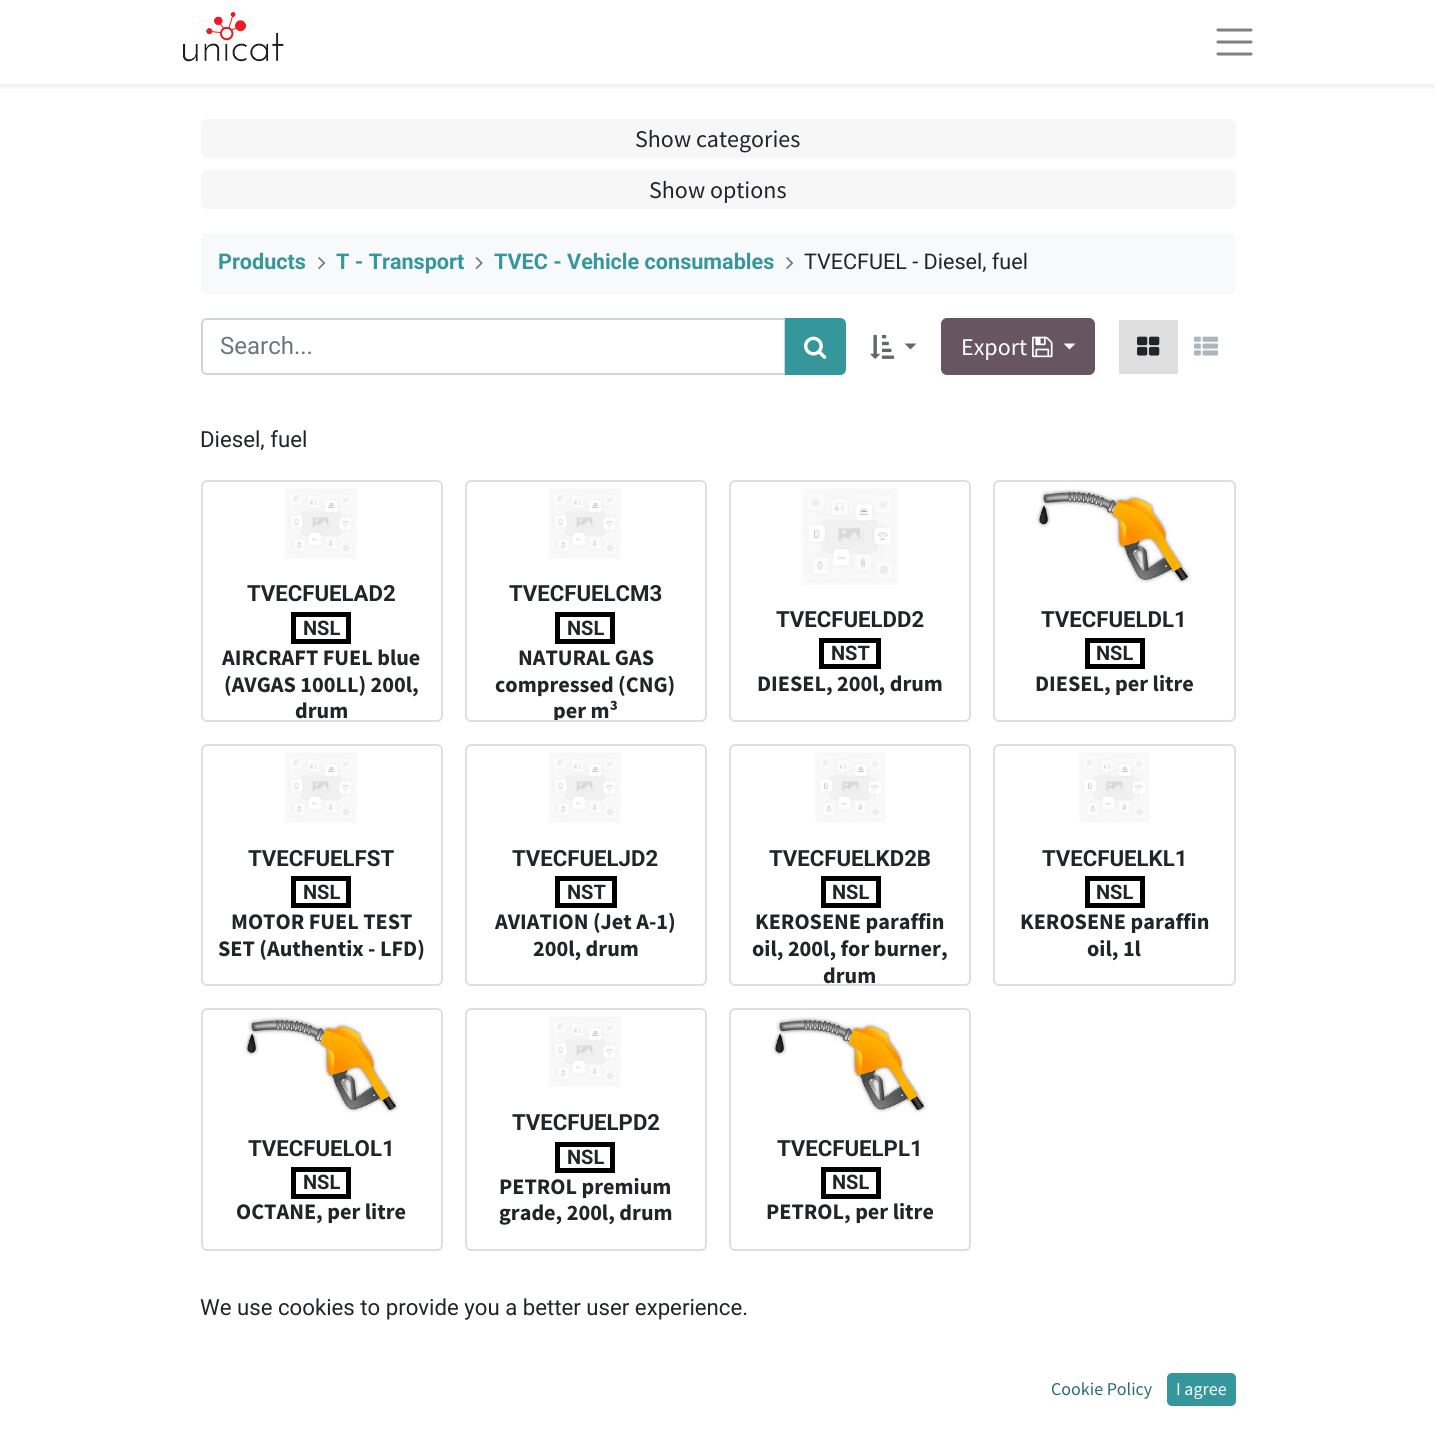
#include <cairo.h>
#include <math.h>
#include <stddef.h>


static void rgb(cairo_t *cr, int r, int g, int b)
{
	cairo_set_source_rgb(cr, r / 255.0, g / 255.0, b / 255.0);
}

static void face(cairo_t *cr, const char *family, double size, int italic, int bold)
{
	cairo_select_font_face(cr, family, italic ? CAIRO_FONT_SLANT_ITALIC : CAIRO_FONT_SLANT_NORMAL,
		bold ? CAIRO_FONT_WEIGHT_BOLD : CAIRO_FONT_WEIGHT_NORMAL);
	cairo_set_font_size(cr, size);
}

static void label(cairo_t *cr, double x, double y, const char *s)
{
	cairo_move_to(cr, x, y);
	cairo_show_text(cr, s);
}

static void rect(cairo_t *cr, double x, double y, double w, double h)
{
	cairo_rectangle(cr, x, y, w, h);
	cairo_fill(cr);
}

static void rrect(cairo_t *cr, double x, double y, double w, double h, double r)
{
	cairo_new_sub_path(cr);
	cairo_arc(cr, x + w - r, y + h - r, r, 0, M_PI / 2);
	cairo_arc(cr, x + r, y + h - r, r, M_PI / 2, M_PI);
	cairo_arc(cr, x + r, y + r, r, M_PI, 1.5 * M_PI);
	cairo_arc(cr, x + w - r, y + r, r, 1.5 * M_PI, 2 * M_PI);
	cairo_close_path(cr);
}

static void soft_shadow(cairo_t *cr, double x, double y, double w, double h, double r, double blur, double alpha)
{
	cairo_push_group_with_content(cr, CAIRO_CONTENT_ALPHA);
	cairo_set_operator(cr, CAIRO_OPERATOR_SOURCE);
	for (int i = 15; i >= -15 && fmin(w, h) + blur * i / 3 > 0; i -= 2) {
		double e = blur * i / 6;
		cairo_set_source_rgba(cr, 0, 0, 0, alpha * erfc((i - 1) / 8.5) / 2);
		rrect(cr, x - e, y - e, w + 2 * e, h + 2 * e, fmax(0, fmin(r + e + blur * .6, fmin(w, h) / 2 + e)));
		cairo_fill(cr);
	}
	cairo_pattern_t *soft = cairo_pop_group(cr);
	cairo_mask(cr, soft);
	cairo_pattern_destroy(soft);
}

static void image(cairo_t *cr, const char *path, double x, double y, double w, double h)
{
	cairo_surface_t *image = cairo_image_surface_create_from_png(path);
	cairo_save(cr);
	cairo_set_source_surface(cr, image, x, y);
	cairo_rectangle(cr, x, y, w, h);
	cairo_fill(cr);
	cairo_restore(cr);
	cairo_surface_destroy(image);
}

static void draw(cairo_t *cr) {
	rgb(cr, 255, 255, 255);
	cairo_paint(cr);
	cairo_save(cr);
	cairo_rectangle(cr, 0, 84, 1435, 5);
	cairo_clip(cr);
	rgb(cr, 0, 0, 0);
	soft_shadow(cr, 0, 3, 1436, 84, 0, 3, 0.07);
	cairo_restore(cr);
	image(cr, "image0.png", 183, 12, 101, 50);
	cairo_new_path(cr);
	cairo_move_to(cr, 1218, 30);
	cairo_line_to(cr, 1251, 30);
	cairo_move_to(cr, 1218, 42);
	cairo_line_to(cr, 1251, 42);
	cairo_move_to(cr, 1218, 54);
	cairo_line_to(cr, 1251, 54);
	rgb(cr, 128, 128, 128);
	cairo_set_line_width(cr, 3);
	cairo_set_line_cap(cr, CAIRO_LINE_CAP_ROUND);
	cairo_stroke(cr);
	rgb(cr, 247, 247, 247);
	rrect(cr, 201, 119, 1035, 39, 6);
	cairo_fill(cr);
	face(cr, "Source Sans Pro", 24, 0, 0);
	rgb(cr, 33, 37, 41);
	label(cr, 635, 147, "Show categories");
	rgb(cr, 247, 247, 247);
	rrect(cr, 201, 170, 1035, 39, 6);
	cairo_fill(cr);
	rgb(cr, 33, 37, 41);
	label(cr, 649, 198, "Show options");
	rgb(cr, 248, 249, 250);
	rrect(cr, 201, 233, 1035, 61, 6);
	cairo_fill(cr);
	face(cr, "Roboto", 21.6, 0, 1);
	rgb(cr, 53, 151, 156);
	label(cr, 218, 269, "Products");
	image(cr, "image1.png", 318, 257, 8, 12);
	label(cr, 336, 269, "T - Transport");
	image(cr, "image2.png", 475, 257, 8, 12);
	label(cr, 494, 269, "TVEC - Vehicle consumables");
	image(cr, "image1.png", 786, 257, 8, 12);
	face(cr, "Roboto", 21.6, 0, 0);
	rgb(cr, 33, 37, 41);
	label(cr, 804, 269, "TVECFUEL - Diesel, fuel");
	cairo_new_path(cr);
	cairo_move_to(cr, 207, 319);
	cairo_line_to(cr, 785, 319);
	cairo_line_to(cr, 785, 374);
	cairo_line_to(cr, 207, 374);
	cairo_curve_to(cr, 204, 374, 202, 372, 202, 369);
	cairo_line_to(cr, 202, 324);
	cairo_curve_to(cr, 202, 321, 204, 319, 207, 319);
	cairo_close_path(cr);
	rgb(cr, 206, 212, 218);
	cairo_set_line_width(cr, 2);
	cairo_set_line_cap(cr, CAIRO_LINE_CAP_BUTT);
	cairo_stroke(cr);
	face(cr, "Roboto", 24, 0, 0);
	rgb(cr, 108, 117, 125);
	label(cr, 220, 354, "Search...");
	rgb(cr, 53, 151, 156);
	cairo_new_path(cr);
	cairo_move_to(cr, 786, 319);
	cairo_line_to(cr, 840, 319);
	cairo_curve_to(cr, 843, 319, 845, 321, 845, 324);
	cairo_line_to(cr, 845, 369);
	cairo_curve_to(cr, 845, 372, 843, 374, 840, 374);
	cairo_line_to(cr, 786, 374);
	cairo_close_path(cr);
	cairo_fill_preserve(cr);
	cairo_stroke(cr);
	image(cr, "image3.png", 804, 336, 23, 23);
	image(cr, "image4.png", 870, 334, 24, 25);
	rgb(cr, 100, 102, 105);
	cairo_new_path(cr);
	cairo_move_to(cr, 904.5, 343.5);
	cairo_line_to(cr, 916.5, 343.5);
	cairo_line_to(cr, 910.5, 349.5);
	cairo_close_path(cr);
	cairo_fill(cr);
	rgb(cr, 104, 85, 99);
	rrect(cr, 942, 319, 152, 55, 5);
	cairo_fill_preserve(cr);
	cairo_stroke(cr);
	face(cr, "Source Sans Pro", 24, 0, 0);
	rgb(cr, 255, 255, 255);
	label(cr, 961, 355, "Export");
	image(cr, "image5.png", 1032, 336, 21, 22);
	cairo_new_path(cr);
	cairo_move_to(cr, 1063.5, 343.5);
	cairo_line_to(cr, 1075.5, 343.5);
	cairo_line_to(cr, 1069.5, 349.5);
	cairo_close_path(cr);
	cairo_fill(cr);
	rgb(cr, 222, 222, 222);
	rect(cr, 1119, 320, 59, 54);
	image(cr, "image6.png", 1137, 336, 23, 20);
	image(cr, "image7.png", 1194, 336, 24, 20);
	face(cr, "Roboto", 22.2, 0, 0);
	rgb(cr, 33, 37, 41);
	label(cr, 200, 447, "Diesel, fuel");
	rrect(cr, 202, 481, 240, 240, 5);
	rgb(cr, 223, 223, 223);
	cairo_stroke(cr);
	image(cr, "image8.png", 285, 488, 72, 71);
	face(cr, "Roboto", 22.2, 0, 1);
	rgb(cr, 33, 37, 41);
	label(cr, 247, 601, "TVECFUELAD2");
	cairo_rectangle(cr, 293.5, 614.5, 55, 27);
	rgb(cr, 0, 0, 0);
	cairo_set_line_width(cr, 5);
	cairo_stroke(cr);
	face(cr, "Roboto", 20, 0, 1);
	rgb(cr, 33, 37, 41);
	label(cr, 303, 635, "NSL");
	face(cr, "Source Sans Pro", 22.2, 0, 1);
	label(cr, 222, 665, "AIRCRAFT FUEL blue");
	label(cr, 224, 692, "(AVGAS 100LL) 200l,");
	label(cr, 295, 718, "drum");
	rrect(cr, 466, 481, 240, 240, 5);
	rgb(cr, 223, 223, 223);
	cairo_set_line_width(cr, 2);
	cairo_stroke(cr);
	image(cr, "image9.png", 549, 488, 72, 71);
	face(cr, "Roboto", 22.2, 0, 1);
	rgb(cr, 33, 37, 41);
	label(cr, 509, 601, "TVECFUELCM3");
	cairo_rectangle(cr, 557.5, 614.5, 55, 27);
	rgb(cr, 0, 0, 0);
	cairo_set_line_width(cr, 5);
	cairo_stroke(cr);
	face(cr, "Roboto", 20, 0, 1);
	rgb(cr, 33, 37, 41);
	label(cr, 567, 635, "NSL");
	face(cr, "Source Sans Pro", 22.2, 0, 1);
	label(cr, 518, 665, "NATURAL GAS");
	label(cr, 495, 692, "compressed (CNG)");
	cairo_save(cr);
	rrect(cr, 467, 482, 238, 238, 5);
	cairo_clip(cr);
	label(cr, 553, 718, "per m³");
	cairo_restore(cr);
	rrect(cr, 730, 481, 240, 240, 5);
	rgb(cr, 223, 223, 223);
	cairo_set_line_width(cr, 2);
	cairo_stroke(cr);
	image(cr, "image10.png", 801, 488, 97, 97);
	face(cr, "Roboto", 22.2, 0, 1);
	rgb(cr, 33, 37, 41);
	label(cr, 776, 627, "TVECFUELDD2");
	cairo_rectangle(cr, 821.5, 640.5, 57, 26);
	rgb(cr, 0, 0, 0);
	cairo_set_line_width(cr, 5);
	cairo_stroke(cr);
	face(cr, "Roboto", 20, 0, 1);
	rgb(cr, 33, 37, 41);
	label(cr, 831, 660, "NST");
	face(cr, "Source Sans Pro", 22.2, 0, 1);
	label(cr, 757, 691, "DIESEL, 200l, drum");
	rrect(cr, 994, 481, 241, 240, 5);
	rgb(cr, 223, 223, 223);
	cairo_set_line_width(cr, 2);
	cairo_stroke(cr);
	image(cr, "image11.png", 1035, 487, 156, 96);
	face(cr, "Roboto", 22.2, 0, 1);
	rgb(cr, 33, 37, 41);
	label(cr, 1041, 627, "TVECFUELDL1");
	cairo_rectangle(cr, 1087.5, 640.5, 55, 26);
	rgb(cr, 0, 0, 0);
	cairo_set_line_width(cr, 5);
	cairo_stroke(cr);
	face(cr, "Roboto", 20, 0, 1);
	rgb(cr, 33, 37, 41);
	label(cr, 1096, 660, "NSL");
	face(cr, "Source Sans Pro", 22.2, 0, 1);
	label(cr, 1035, 691, "DIESEL, per litre");
	rrect(cr, 202, 745, 240, 240, 5);
	rgb(cr, 223, 223, 223);
	cairo_set_line_width(cr, 2);
	cairo_stroke(cr);
	image(cr, "image8.png", 285, 752, 72, 71);
	face(cr, "Roboto", 22.2, 0, 1);
	rgb(cr, 33, 37, 41);
	label(cr, 248, 866, "TVECFUELFST");
	cairo_rectangle(cr, 293.5, 878.5, 55, 27);
	rgb(cr, 0, 0, 0);
	cairo_set_line_width(cr, 5);
	cairo_stroke(cr);
	face(cr, "Roboto", 20, 0, 1);
	rgb(cr, 33, 37, 41);
	label(cr, 303, 899, "NSL");
	face(cr, "Source Sans Pro", 22.2, 0, 1);
	label(cr, 231, 929, "MOTOR FUEL TEST");
	label(cr, 218, 956, "SET (Authentix - LFD)");
	rrect(cr, 466, 745, 240, 240, 5);
	rgb(cr, 223, 223, 223);
	cairo_set_line_width(cr, 2);
	cairo_stroke(cr);
	image(cr, "image9.png", 549, 752, 72, 71);
	face(cr, "Roboto", 22.2, 0, 1);
	rgb(cr, 33, 37, 41);
	label(cr, 512, 866, "TVECFUELJD2");
	cairo_rectangle(cr, 557.5, 878.5, 57, 27);
	rgb(cr, 0, 0, 0);
	cairo_set_line_width(cr, 5);
	cairo_stroke(cr);
	face(cr, "Roboto", 20, 0, 1);
	rgb(cr, 33, 37, 41);
	label(cr, 567, 899, "NST");
	face(cr, "Source Sans Pro", 22.2, 0, 1);
	label(cr, 495, 929, "AVIATION (Jet A-1)");
	label(cr, 533, 956, "200l, drum");
	rrect(cr, 730, 745, 240, 240, 5);
	rgb(cr, 223, 223, 223);
	cairo_set_line_width(cr, 2);
	cairo_stroke(cr);
	image(cr, "image12.png", 815, 752, 71, 71);
	face(cr, "Roboto", 22.2, 0, 1);
	rgb(cr, 33, 37, 41);
	label(cr, 769, 866, "TVECFUELKD2B");
	cairo_rectangle(cr, 823.5, 878.5, 55, 27);
	rgb(cr, 0, 0, 0);
	cairo_set_line_width(cr, 5);
	cairo_stroke(cr);
	face(cr, "Roboto", 20, 0, 1);
	rgb(cr, 33, 37, 41);
	label(cr, 832, 899, "NSL");
	face(cr, "Source Sans Pro", 22.2, 0, 1);
	label(cr, 755, 929, "KEROSENE paraffin");
	label(cr, 752, 956, "oil, 200l, for burner,");
	label(cr, 823, 983, "drum");
	rrect(cr, 994, 745, 241, 240, 5);
	rgb(cr, 223, 223, 223);
	cairo_set_line_width(cr, 2);
	cairo_stroke(cr);
	image(cr, "image12.png", 1079, 752, 71, 71);
	face(cr, "Roboto", 22.2, 0, 1);
	rgb(cr, 33, 37, 41);
	label(cr, 1042, 866, "TVECFUELKL1");
	cairo_rectangle(cr, 1087.5, 878.5, 55, 27);
	rgb(cr, 0, 0, 0);
	cairo_set_line_width(cr, 5);
	cairo_stroke(cr);
	face(cr, "Roboto", 20, 0, 1);
	rgb(cr, 33, 37, 41);
	label(cr, 1096, 899, "NSL");
	face(cr, "Source Sans Pro", 22.2, 0, 1);
	label(cr, 1020, 929, "KEROSENE paraffin");
	label(cr, 1087, 956, "oil, 1l");
	rrect(cr, 202, 1009, 240, 241, 5);
	rgb(cr, 223, 223, 223);
	cairo_set_line_width(cr, 2);
	cairo_stroke(cr);
	image(cr, "image13.png", 243, 1015, 156, 98);
	face(cr, "Roboto", 22.2, 0, 1);
	rgb(cr, 33, 37, 41);
	label(cr, 248, 1156, "TVECFUELOL1");
	cairo_rectangle(cr, 293.5, 1169.5, 55, 27);
	rgb(cr, 0, 0, 0);
	cairo_set_line_width(cr, 5);
	cairo_stroke(cr);
	face(cr, "Roboto", 20, 0, 1);
	rgb(cr, 33, 37, 41);
	label(cr, 303, 1189, "NSL");
	face(cr, "Source Sans Pro", 22.2, 0, 1);
	label(cr, 236, 1219, "OCTANE, per litre");
	rrect(cr, 466, 1009, 240, 241, 5);
	rgb(cr, 223, 223, 223);
	cairo_set_line_width(cr, 2);
	cairo_stroke(cr);
	image(cr, "image9.png", 549, 1016, 72, 71);
	face(cr, "Roboto", 22.2, 0, 1);
	rgb(cr, 33, 37, 41);
	label(cr, 512, 1130, "TVECFUELPD2");
	cairo_rectangle(cr, 557.5, 1144.5, 55, 26);
	rgb(cr, 0, 0, 0);
	cairo_set_line_width(cr, 5);
	cairo_stroke(cr);
	face(cr, "Roboto", 20, 0, 1);
	rgb(cr, 33, 37, 41);
	label(cr, 567, 1164, "NSL");
	face(cr, "Source Sans Pro", 22.2, 0, 1);
	label(cr, 499, 1194, "PETROL premium");
	label(cr, 499, 1220, "grade, 200l, drum");
	rrect(cr, 730, 1009, 240, 241, 5);
	rgb(cr, 223, 223, 223);
	cairo_set_line_width(cr, 2);
	cairo_stroke(cr);
	image(cr, "image13.png", 771, 1015, 156, 98);
	face(cr, "Roboto", 22.2, 0, 1);
	rgb(cr, 33, 37, 41);
	label(cr, 777, 1156, "TVECFUELPL1");
	cairo_rectangle(cr, 823.5, 1169.5, 55, 27);
	rgb(cr, 0, 0, 0);
	cairo_set_line_width(cr, 5);
	cairo_stroke(cr);
	face(cr, "Roboto", 20, 0, 1);
	rgb(cr, 33, 37, 41);
	label(cr, 832, 1189, "NSL");
	face(cr, "Source Sans Pro", 22.2, 0, 1);
	label(cr, 766, 1219, "PETROL, per litre");
	face(cr, "Roboto", 22.2, 0, 0);
	label(cr, 200, 1315, "We use cookies to provide you a better user experience.");
	face(cr, "Source Sans Pro", 18, 0, 0);
	rgb(cr, 39, 110, 114);
	label(cr, 1051, 1395, "Cookie Policy");
	rgb(cr, 53, 151, 156);
	rrect(cr, 1168, 1374, 67, 31, 4);
	cairo_fill_preserve(cr);
	cairo_set_line_width(cr, 2);
	cairo_stroke(cr);
	rgb(cr, 255, 255, 255);
	label(cr, 1176, 1395, "I agree");
}

int main(void) {
	cairo_surface_t *surface = cairo_image_surface_create(CAIRO_FORMAT_RGB24, 1435, 1429);
	cairo_t *cr = cairo_create(surface);
	cairo_font_options_t *options = cairo_font_options_create();
	cairo_font_options_set_hint_metrics(options, CAIRO_HINT_METRICS_OFF);
	cairo_font_options_set_hint_style(options, CAIRO_HINT_STYLE_NONE);
	cairo_set_font_options(cr, options);
	cairo_set_miter_limit(cr, 4);
	draw(cr);
	cairo_surface_write_to_png(surface, "render.png");
	cairo_font_options_destroy(options);
	cairo_destroy(cr);
	cairo_surface_destroy(surface);
	return 0;
}
